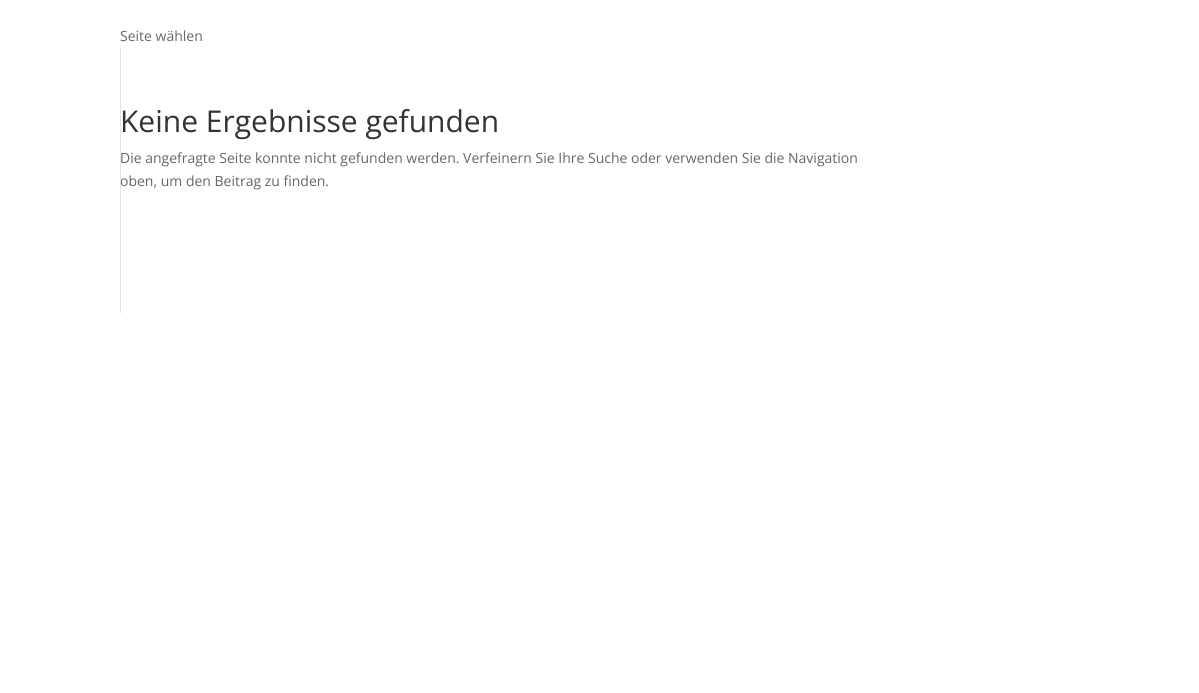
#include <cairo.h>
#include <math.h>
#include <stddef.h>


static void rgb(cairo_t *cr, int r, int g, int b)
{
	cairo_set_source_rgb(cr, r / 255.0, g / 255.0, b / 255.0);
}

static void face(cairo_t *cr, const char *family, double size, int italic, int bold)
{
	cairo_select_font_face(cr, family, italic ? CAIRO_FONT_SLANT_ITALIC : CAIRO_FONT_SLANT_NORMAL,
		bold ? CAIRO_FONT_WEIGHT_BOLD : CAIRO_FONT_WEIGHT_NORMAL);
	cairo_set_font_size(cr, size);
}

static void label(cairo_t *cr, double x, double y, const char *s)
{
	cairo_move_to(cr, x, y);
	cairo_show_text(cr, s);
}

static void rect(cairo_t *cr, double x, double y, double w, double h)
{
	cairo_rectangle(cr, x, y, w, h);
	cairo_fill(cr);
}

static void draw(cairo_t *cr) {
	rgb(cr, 255, 255, 255);
	cairo_paint(cr);
	face(cr, "Open Sans", 14, 0, 0);
	rgb(cr, 102, 102, 102);
	label(cr, 120, 41, "Seite wählen");
	label(cr, 120, 186, "oben, um den Beitrag zu finden.");
	rgb(cr, 226, 226, 226);
	rect(cr, 120, 48, 1, 265);
	face(cr, "Open Sans", 30, 0, 0);
	rgb(cr, 51, 51, 51);
	label(cr, 120, 132, "Keine Ergebnisse gefunden");
	face(cr, "Open Sans", 14, 0, 0);
	rgb(cr, 102, 102, 102);
	label(cr, 120, 163, "Die angefragte Seite konnte nicht gefunden werden. Verfeinern Sie Ihre Suche oder verwenden Sie die Navigation");
}

int main(void) {
	cairo_surface_t *surface = cairo_image_surface_create(CAIRO_FORMAT_RGB24, 1199, 693);
	cairo_t *cr = cairo_create(surface);
	cairo_font_options_t *options = cairo_font_options_create();
	cairo_font_options_set_hint_metrics(options, CAIRO_HINT_METRICS_OFF);
	cairo_font_options_set_hint_style(options, CAIRO_HINT_STYLE_NONE);
	cairo_set_font_options(cr, options);
	cairo_set_miter_limit(cr, 4);
	draw(cr);
	cairo_surface_write_to_png(surface, "render.png");
	cairo_font_options_destroy(options);
	cairo_destroy(cr);
	cairo_surface_destroy(surface);
	return 0;
}
